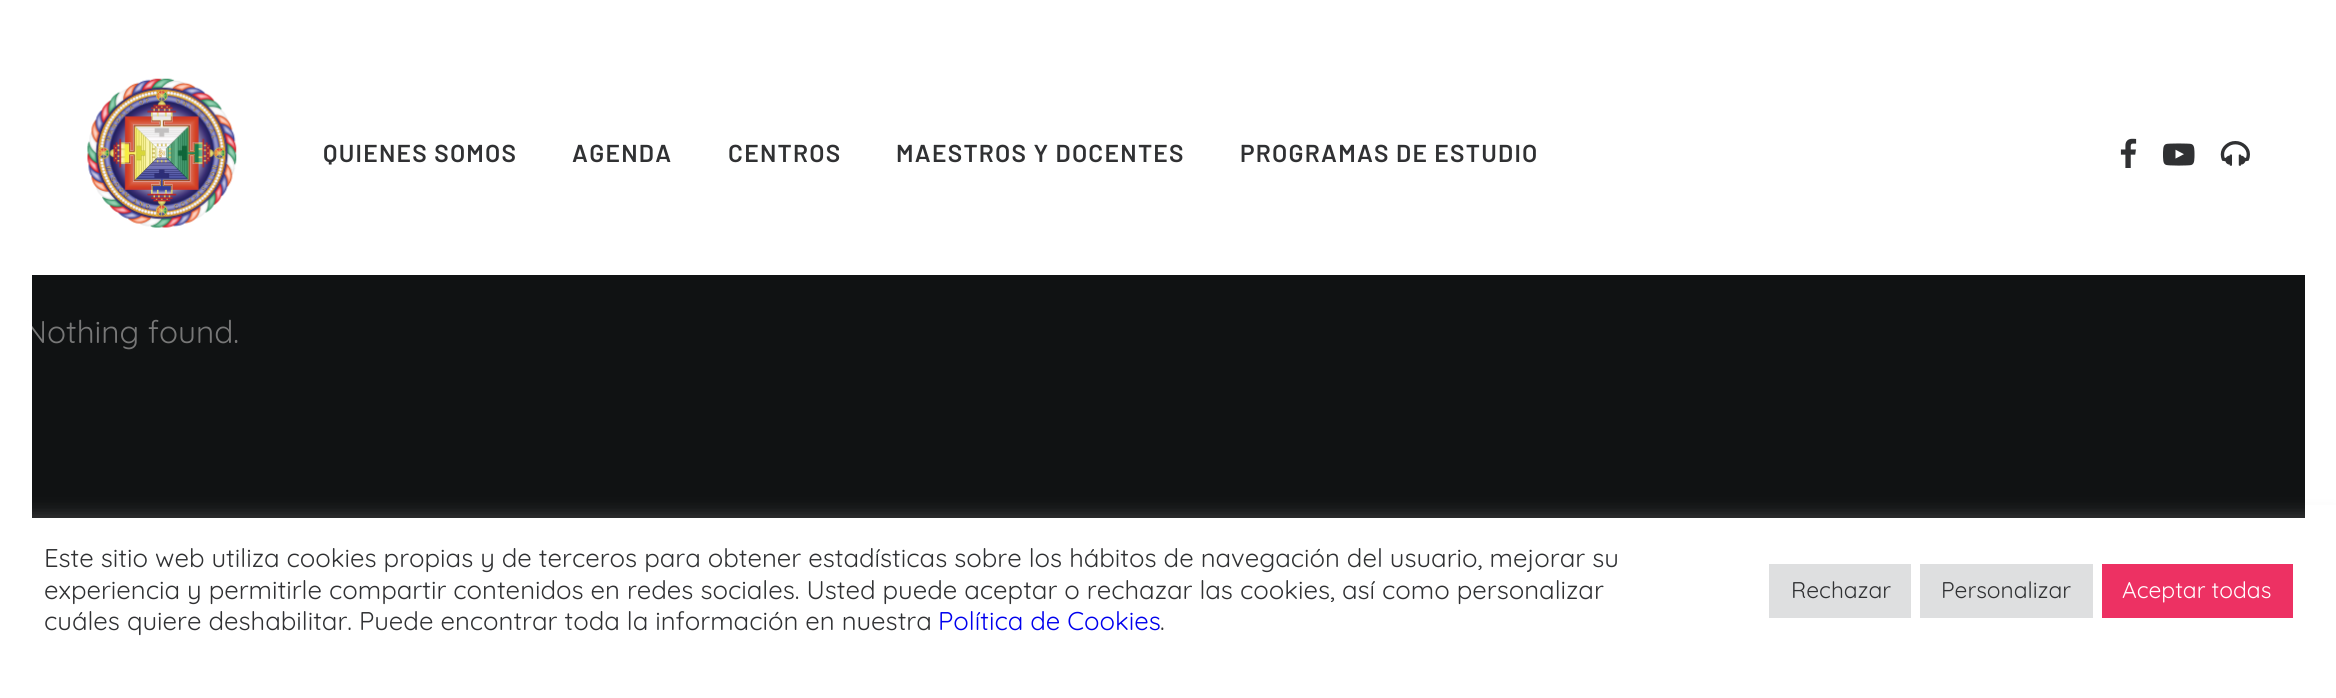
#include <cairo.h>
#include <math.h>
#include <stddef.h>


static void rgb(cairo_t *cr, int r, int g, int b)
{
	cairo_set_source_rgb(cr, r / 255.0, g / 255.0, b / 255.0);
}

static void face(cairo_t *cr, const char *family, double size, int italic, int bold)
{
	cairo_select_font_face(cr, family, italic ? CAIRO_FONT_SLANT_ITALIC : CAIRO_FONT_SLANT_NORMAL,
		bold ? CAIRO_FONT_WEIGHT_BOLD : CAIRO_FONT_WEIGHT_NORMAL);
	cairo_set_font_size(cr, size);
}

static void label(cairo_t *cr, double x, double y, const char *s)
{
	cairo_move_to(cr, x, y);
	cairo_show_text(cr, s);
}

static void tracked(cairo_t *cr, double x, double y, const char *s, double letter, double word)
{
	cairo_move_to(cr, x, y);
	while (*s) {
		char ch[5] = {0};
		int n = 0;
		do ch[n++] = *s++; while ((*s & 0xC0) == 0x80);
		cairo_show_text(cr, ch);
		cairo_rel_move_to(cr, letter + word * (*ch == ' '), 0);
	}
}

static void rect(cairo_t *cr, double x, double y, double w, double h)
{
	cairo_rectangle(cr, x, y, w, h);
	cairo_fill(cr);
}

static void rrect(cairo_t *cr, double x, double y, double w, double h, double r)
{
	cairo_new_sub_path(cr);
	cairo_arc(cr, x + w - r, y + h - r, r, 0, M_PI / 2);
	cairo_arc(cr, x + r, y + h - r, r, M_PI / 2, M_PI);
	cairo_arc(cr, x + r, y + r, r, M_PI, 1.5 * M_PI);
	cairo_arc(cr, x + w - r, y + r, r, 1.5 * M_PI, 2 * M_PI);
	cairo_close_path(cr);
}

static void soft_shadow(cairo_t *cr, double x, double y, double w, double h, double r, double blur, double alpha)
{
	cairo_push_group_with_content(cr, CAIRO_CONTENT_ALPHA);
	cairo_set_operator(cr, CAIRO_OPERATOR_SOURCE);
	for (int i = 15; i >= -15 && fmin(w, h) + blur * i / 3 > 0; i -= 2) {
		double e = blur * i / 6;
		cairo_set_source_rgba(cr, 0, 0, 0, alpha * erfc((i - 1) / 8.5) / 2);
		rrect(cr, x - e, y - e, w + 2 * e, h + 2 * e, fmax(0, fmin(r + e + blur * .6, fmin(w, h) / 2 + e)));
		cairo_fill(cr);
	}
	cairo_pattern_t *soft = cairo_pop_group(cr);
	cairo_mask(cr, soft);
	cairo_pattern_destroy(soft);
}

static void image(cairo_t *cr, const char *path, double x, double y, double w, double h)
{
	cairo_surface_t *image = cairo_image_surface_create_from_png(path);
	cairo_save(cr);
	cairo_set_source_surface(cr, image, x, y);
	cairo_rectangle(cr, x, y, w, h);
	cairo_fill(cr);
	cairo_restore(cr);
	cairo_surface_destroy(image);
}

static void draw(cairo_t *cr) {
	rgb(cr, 255, 255, 255);
	cairo_paint(cr);
	image(cr, "image0.png", 87, 78, 150, 150);
	face(cr, "Barlow SemiBold", 24.5, 0, 0);
	rgb(cr, 48, 49, 51);
	tracked(cr, 323, 162, "QUIENES SOMOS", 1.25, 0);
	tracked(cr, 572, 162, "AGENDA", 1.25, 0);
	tracked(cr, 728, 162, "CENTROS", 1.25, 0);
	tracked(cr, 896, 162, "MAESTROS Y DOCENTES", 1.25, 0);
	tracked(cr, 1240, 162, "PROGRAMAS DE ESTUDIO", 1.25, 0);
	image(cr, "image1.png", 2120, 138, 17, 30);
	image(cr, "image2.png", 2163, 143, 32, 23);
	image(cr, "image3.png", 2220, 141, 30, 25);
	rgb(cr, 16, 18, 19);
	rect(cr, 32, 275, 2273, 243);
	face(cr, "Quicksand", 31.5, 0, 0);
	rgb(cr, 119, 119, 119);
	label(cr, 24, 343, "Nothing found.");
	rgb(cr, 172, 171, 171);
	soft_shadow(cr, 0, 516, 2336, 181, 0, 9, 0.3);
	rgb(cr, 255, 255, 255);
	rect(cr, 0, 321, 32, 377);
	rect(cr, 2305, 505, 31, 193);
	rect(cr, 32, 518, 2273, 180);
	face(cr, "Quicksand", 25.67, 0, 0);
	rgb(cr, 48, 49, 51);
	label(cr, 44, 567, "Este sitio web utiliza cookies propias y de terceros para obtener estadísticas sobre los hábitos de navegación del usuario, mejorar su");
	label(cr, 44, 599, "experiencia y permitirle compartir contenidos en redes sociales. Usted puede aceptar o rechazar las cookies, así como personalizar");
	label(cr, 44, 630, "cuáles quiere deshabilitar. Puede encontrar toda la información en nuestra");
	rgb(cr, 0, 0, 238);
	label(cr, 938, 630, "Política de Cookies");
	rgb(cr, 48, 49, 51);
	label(cr, 1160, 630, ".");
	rgb(cr, 222, 223, 224);
	rect(cr, 1769, 564, 142, 54);
	face(cr, "Quicksand", 22.75, 0, 0);
	rgb(cr, 48, 49, 51);
	label(cr, 1791, 598, "Rechazar");
	rgb(cr, 222, 223, 224);
	rect(cr, 1920, 564, 173, 54);
	rgb(cr, 48, 49, 51);
	label(cr, 1941, 598, "Personalizar");
	rgb(cr, 237, 49, 99);
	rect(cr, 2102, 564, 191, 54);
	rgb(cr, 255, 255, 255);
	label(cr, 2122, 598, "Aceptar todas");
}

int main(void) {
	cairo_surface_t *surface = cairo_image_surface_create(CAIRO_FORMAT_RGB24, 2336, 698);
	cairo_t *cr = cairo_create(surface);
	cairo_font_options_t *options = cairo_font_options_create();
	cairo_font_options_set_hint_metrics(options, CAIRO_HINT_METRICS_OFF);
	cairo_font_options_set_hint_style(options, CAIRO_HINT_STYLE_NONE);
	cairo_set_font_options(cr, options);
	cairo_set_miter_limit(cr, 4);
	draw(cr);
	cairo_surface_write_to_png(surface, "render.png");
	cairo_font_options_destroy(options);
	cairo_destroy(cr);
	cairo_surface_destroy(surface);
	return 0;
}
